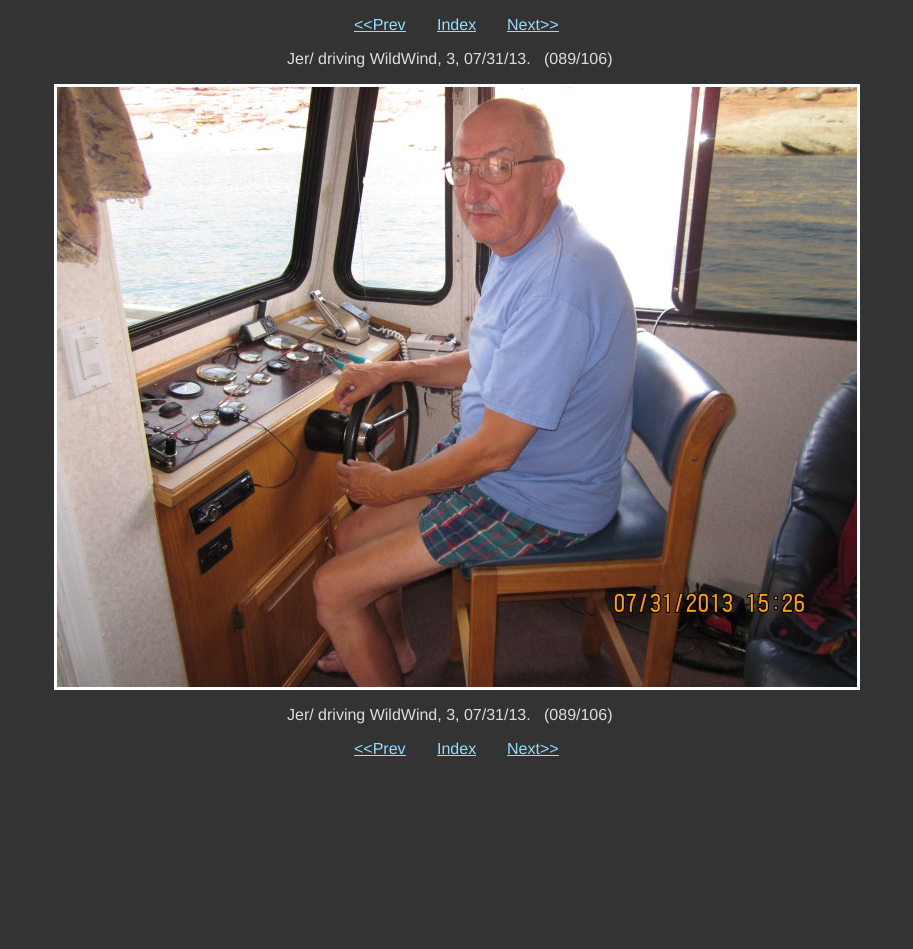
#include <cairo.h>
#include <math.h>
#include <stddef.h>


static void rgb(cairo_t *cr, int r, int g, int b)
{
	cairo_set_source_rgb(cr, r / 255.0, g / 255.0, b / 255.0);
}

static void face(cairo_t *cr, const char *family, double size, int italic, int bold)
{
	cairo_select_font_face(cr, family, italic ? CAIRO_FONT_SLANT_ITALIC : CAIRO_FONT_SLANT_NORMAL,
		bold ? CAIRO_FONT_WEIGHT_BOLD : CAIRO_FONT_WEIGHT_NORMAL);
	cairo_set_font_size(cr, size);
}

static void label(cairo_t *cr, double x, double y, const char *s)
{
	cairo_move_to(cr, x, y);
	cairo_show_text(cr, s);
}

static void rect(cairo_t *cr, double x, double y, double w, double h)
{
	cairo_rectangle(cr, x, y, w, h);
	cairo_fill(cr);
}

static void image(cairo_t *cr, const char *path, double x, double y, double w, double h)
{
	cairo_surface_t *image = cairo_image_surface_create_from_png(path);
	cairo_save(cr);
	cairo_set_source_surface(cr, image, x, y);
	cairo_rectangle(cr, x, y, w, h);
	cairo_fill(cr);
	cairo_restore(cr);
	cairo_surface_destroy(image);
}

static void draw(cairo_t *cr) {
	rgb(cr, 51, 51, 51);
	cairo_paint(cr);
	face(cr, "Liberation Sans", 16, 0, 0);
	rgb(cr, 149, 221, 255);
	label(cr, 354, 30, "<<Prev");
	rect(cr, 354, 31, 52, 1);
	label(cr, 437, 30, "Index");
	rect(cr, 437, 31, 39, 1);
	label(cr, 507, 30, "Next>>");
	rect(cr, 507, 31, 52, 1);
	rgb(cr, 221, 221, 221);
	label(cr, 287, 64, "Jer/ driving WildWind, 3, 07/31/13.   (089/106)");
	cairo_rectangle(cr, 55.5, 85.5, 803, 603);
	rgb(cr, 255, 255, 255);
	cairo_set_line_width(cr, 3);
	cairo_stroke(cr);
	image(cr, "image0.png", 57, 87, 800, 600);
	rgb(cr, 221, 221, 221);
	label(cr, 287, 720, "Jer/ driving WildWind, 3, 07/31/13.   (089/106)");
	rgb(cr, 149, 221, 255);
	label(cr, 354, 754, "<<Prev");
	rect(cr, 354, 755, 52, 1);
	label(cr, 437, 754, "Index");
	rect(cr, 437, 755, 39, 1);
	label(cr, 507, 754, "Next>>");
	rect(cr, 507, 755, 52, 1);
}

int main(void) {
	cairo_surface_t *surface = cairo_image_surface_create(CAIRO_FORMAT_RGB24, 913, 949);
	cairo_t *cr = cairo_create(surface);
	cairo_font_options_t *options = cairo_font_options_create();
	cairo_font_options_set_hint_metrics(options, CAIRO_HINT_METRICS_OFF);
	cairo_font_options_set_hint_style(options, CAIRO_HINT_STYLE_NONE);
	cairo_set_font_options(cr, options);
	cairo_set_miter_limit(cr, 4);
	draw(cr);
	cairo_surface_write_to_png(surface, "render.png");
	cairo_font_options_destroy(options);
	cairo_destroy(cr);
	cairo_surface_destroy(surface);
	return 0;
}
